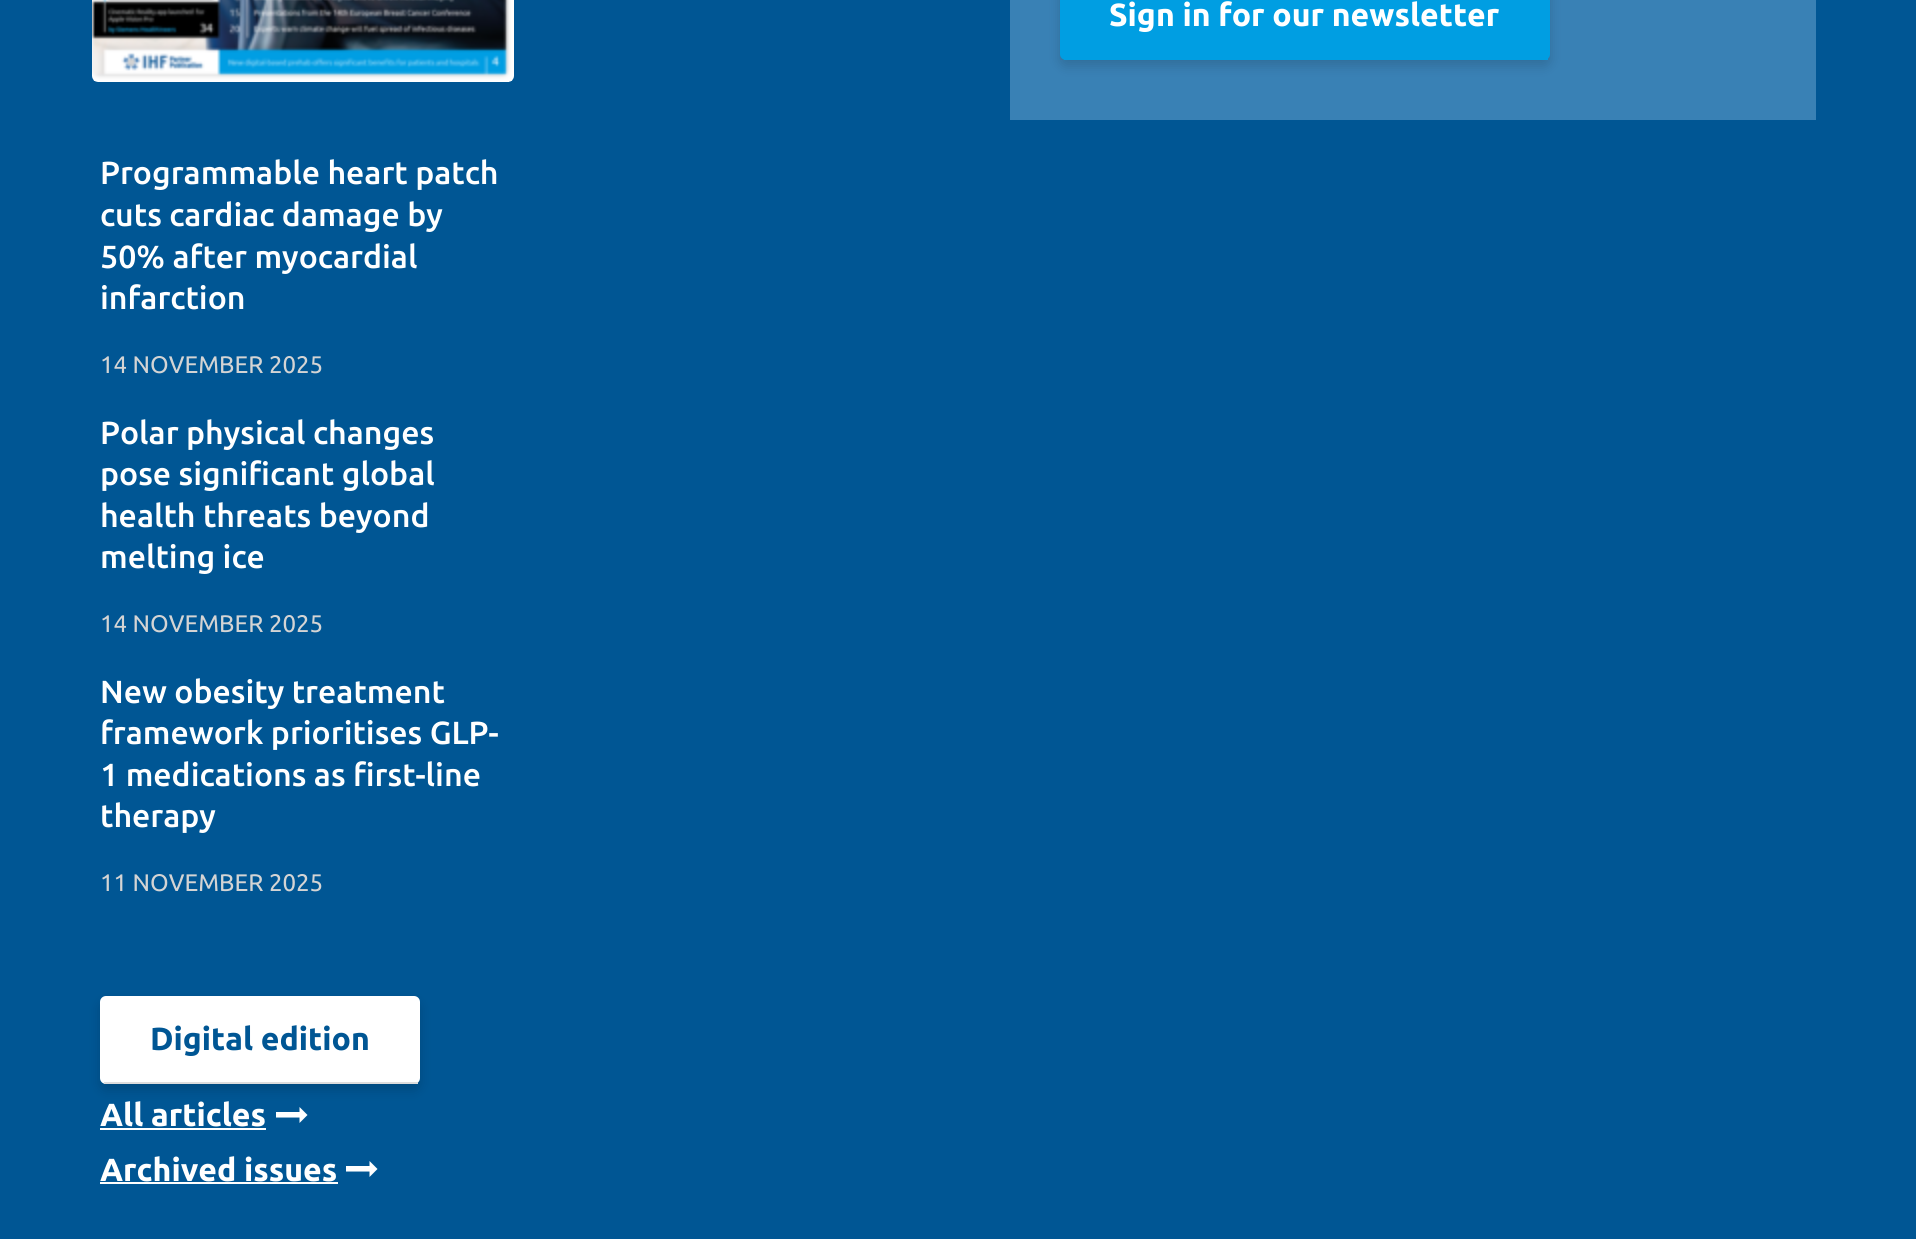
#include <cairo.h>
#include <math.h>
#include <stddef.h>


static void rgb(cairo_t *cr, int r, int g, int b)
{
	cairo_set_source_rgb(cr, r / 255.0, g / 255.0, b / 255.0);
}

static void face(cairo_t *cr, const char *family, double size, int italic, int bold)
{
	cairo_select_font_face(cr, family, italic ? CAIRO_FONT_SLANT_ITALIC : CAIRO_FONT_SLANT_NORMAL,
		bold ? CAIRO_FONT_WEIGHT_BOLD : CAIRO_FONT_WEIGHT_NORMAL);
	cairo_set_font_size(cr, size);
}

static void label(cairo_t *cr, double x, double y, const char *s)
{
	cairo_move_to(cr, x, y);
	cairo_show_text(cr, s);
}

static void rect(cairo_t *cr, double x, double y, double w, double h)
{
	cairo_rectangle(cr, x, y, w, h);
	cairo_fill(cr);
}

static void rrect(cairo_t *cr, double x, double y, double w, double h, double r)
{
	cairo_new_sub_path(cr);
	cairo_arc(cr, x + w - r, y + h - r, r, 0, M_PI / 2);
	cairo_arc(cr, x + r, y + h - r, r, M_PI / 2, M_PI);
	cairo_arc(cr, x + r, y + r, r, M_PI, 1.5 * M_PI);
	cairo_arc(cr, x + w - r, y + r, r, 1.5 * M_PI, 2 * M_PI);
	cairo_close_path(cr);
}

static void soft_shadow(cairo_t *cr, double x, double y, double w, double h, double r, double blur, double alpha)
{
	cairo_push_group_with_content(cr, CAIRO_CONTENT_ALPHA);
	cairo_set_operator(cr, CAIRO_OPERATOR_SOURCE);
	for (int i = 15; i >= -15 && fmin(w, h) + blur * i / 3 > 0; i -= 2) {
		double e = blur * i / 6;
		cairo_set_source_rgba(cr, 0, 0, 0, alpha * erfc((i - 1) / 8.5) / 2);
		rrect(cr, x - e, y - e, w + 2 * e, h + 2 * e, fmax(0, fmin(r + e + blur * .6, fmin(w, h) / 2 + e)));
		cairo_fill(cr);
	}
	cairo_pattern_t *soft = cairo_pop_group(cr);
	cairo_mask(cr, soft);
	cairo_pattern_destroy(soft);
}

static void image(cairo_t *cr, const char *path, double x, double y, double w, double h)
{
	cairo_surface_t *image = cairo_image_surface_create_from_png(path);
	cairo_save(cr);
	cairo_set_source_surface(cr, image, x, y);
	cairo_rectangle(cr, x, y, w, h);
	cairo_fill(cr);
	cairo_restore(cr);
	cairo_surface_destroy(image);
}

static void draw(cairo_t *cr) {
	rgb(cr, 0, 86, 148);
	cairo_paint(cr);
	rgb(cr, 57, 129, 181);
	rect(cr, 1010, 0, 806, 120);
	rgb(cr, 0, 0, 0);
	soft_shadow(cr, 1060, -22, 490, 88, 6, 6, 0.15);
	rgb(cr, 0, 158, 226);
	rrect(cr, 1060, -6, 490, 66, 6);
	cairo_fill(cr);
	rect(cr, 1064, 58, 484, 2);
	face(cr, "Ubuntu", 32, 0, 1);
	rgb(cr, 255, 255, 255);
	label(cr, 1109, 26, "Sign in for our newsletter");
	image(cr, "image0.png", 92, 0, 422, 82);
	face(cr, "Ubuntu Medium", 32, 0, 0);
	label(cr, 100, 184, "Programmable heart patch");
	label(cr, 100, 226, "cuts cardiac damage by");
	label(cr, 100, 268, "50% after myocardial");
	label(cr, 100, 309, "infarction");
	face(cr, "Ubuntu", 24, 0, 0);
	rgb(cr, 212, 212, 212);
	label(cr, 100, 373, "14 NOVEMBER 2025");
	face(cr, "Ubuntu Medium", 32, 0, 0);
	rgb(cr, 255, 255, 255);
	label(cr, 100, 444, "Polar physical changes");
	label(cr, 100, 485, "pose significant global");
	label(cr, 100, 527, "health threats beyond");
	label(cr, 100, 568, "melting ice");
	face(cr, "Ubuntu", 24, 0, 0);
	rgb(cr, 212, 212, 212);
	label(cr, 100, 632, "14 NOVEMBER 2025");
	face(cr, "Ubuntu Medium", 32, 0, 0);
	rgb(cr, 255, 255, 255);
	label(cr, 100, 703, "New obesity treatment");
	label(cr, 100, 744, "framework prioritises GLP-");
	label(cr, 100, 786, "1 medications as first-line");
	label(cr, 100, 827, "therapy");
	face(cr, "Ubuntu", 24, 0, 0);
	rgb(cr, 212, 212, 212);
	label(cr, 100, 891, "11 NOVEMBER 2025");
	rgb(cr, 0, 0, 0);
	soft_shadow(cr, 100, 1002, 320, 88, 6, 6, 0.15);
	rgb(cr, 255, 255, 255);
	rrect(cr, 100, 996, 320, 88, 6);
	cairo_fill(cr);
	rgb(cr, 221, 221, 221);
	rect(cr, 104, 1082, 314, 2);
	face(cr, "Ubuntu", 32, 0, 1);
	rgb(cr, 0, 86, 148);
	label(cr, 150, 1050, "Digital edition");
	rgb(cr, 255, 255, 255);
	label(cr, 100, 1126, "All articles");
	rect(cr, 100, 1128, 166, 2);
	cairo_new_path(cr);
	cairo_move_to(cr, 299.5, 1123);
	cairo_line_to(cr, 299.5, 1117.5);
	cairo_line_to(cr, 276, 1117.5);
	cairo_line_to(cr, 276, 1112);
	cairo_line_to(cr, 299.5, 1112);
	cairo_line_to(cr, 299.5, 1107);
	cairo_line_to(cr, 307.5, 1115);
	cairo_close_path(cr);
	cairo_fill(cr);
	label(cr, 100, 1181, "Archived issues");
	rect(cr, 100, 1182, 238, 2);
	cairo_new_path(cr);
	cairo_move_to(cr, 369.5, 1177);
	cairo_line_to(cr, 369.5, 1171.5);
	cairo_line_to(cr, 346, 1171.5);
	cairo_line_to(cr, 346, 1166);
	cairo_line_to(cr, 369.5, 1166);
	cairo_line_to(cr, 369.5, 1161);
	cairo_line_to(cr, 377.5, 1169);
	cairo_close_path(cr);
	cairo_fill(cr);
}

int main(void) {
	cairo_surface_t *surface = cairo_image_surface_create(CAIRO_FORMAT_RGB24, 1916, 1239);
	cairo_t *cr = cairo_create(surface);
	cairo_font_options_t *options = cairo_font_options_create();
	cairo_font_options_set_hint_metrics(options, CAIRO_HINT_METRICS_OFF);
	cairo_font_options_set_hint_style(options, CAIRO_HINT_STYLE_NONE);
	cairo_set_font_options(cr, options);
	cairo_set_miter_limit(cr, 4);
	draw(cr);
	cairo_surface_write_to_png(surface, "render.png");
	cairo_font_options_destroy(options);
	cairo_destroy(cr);
	cairo_surface_destroy(surface);
	return 0;
}
